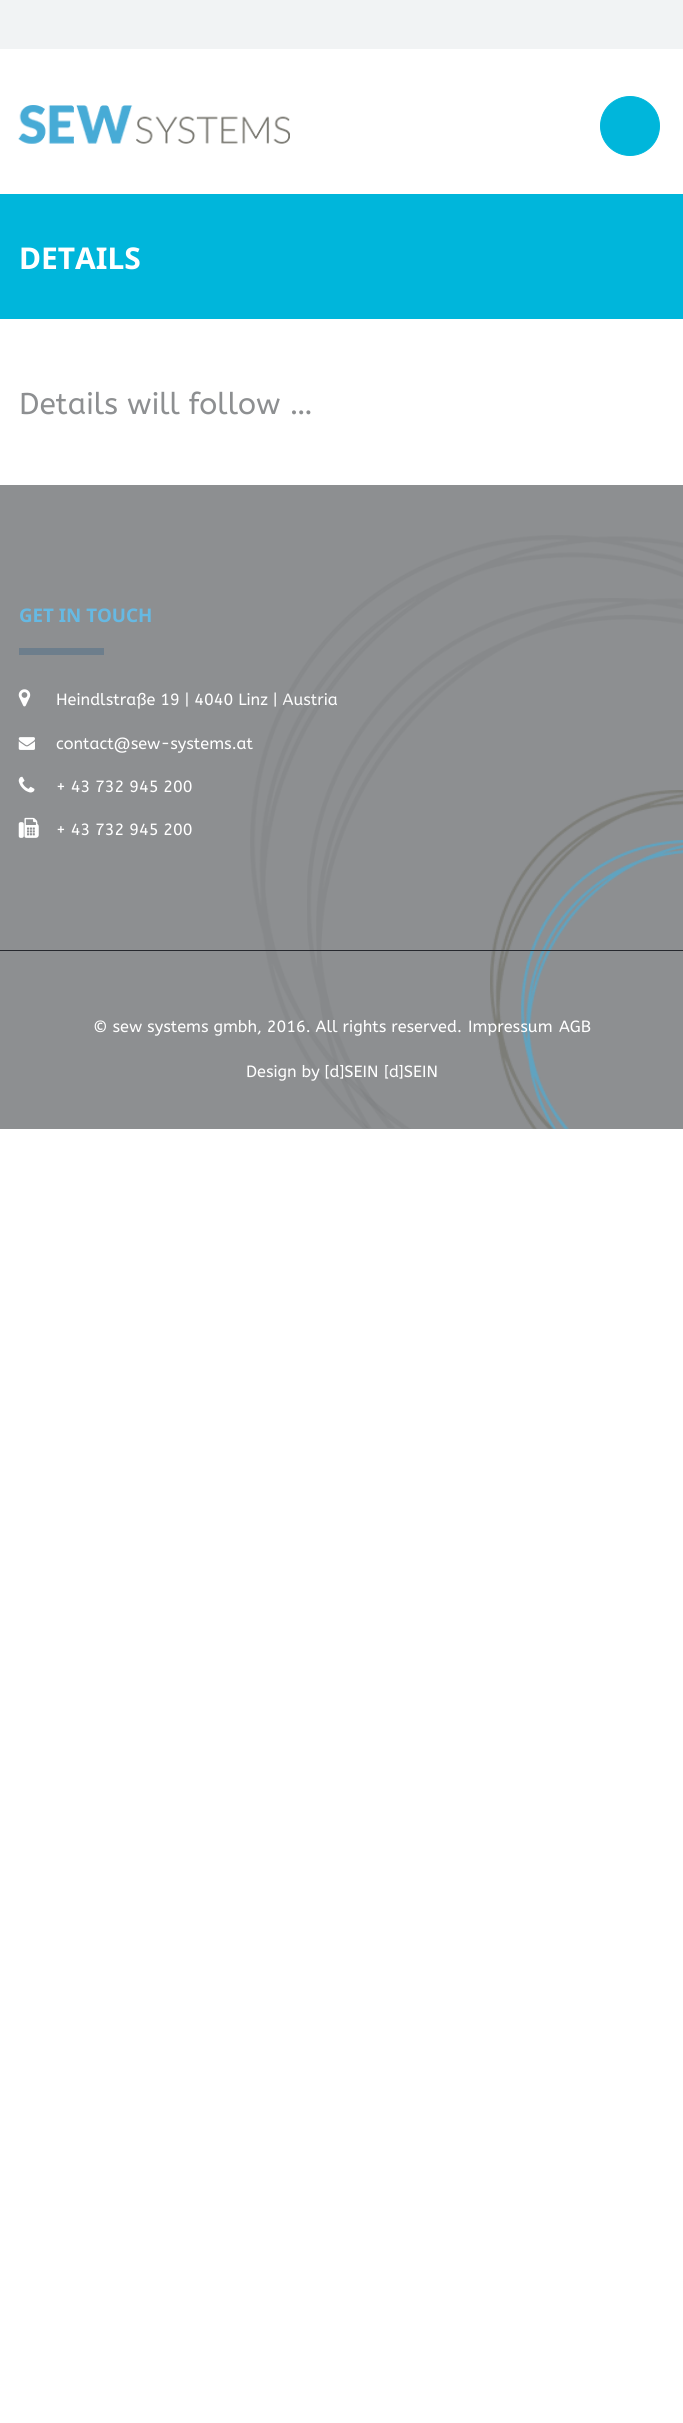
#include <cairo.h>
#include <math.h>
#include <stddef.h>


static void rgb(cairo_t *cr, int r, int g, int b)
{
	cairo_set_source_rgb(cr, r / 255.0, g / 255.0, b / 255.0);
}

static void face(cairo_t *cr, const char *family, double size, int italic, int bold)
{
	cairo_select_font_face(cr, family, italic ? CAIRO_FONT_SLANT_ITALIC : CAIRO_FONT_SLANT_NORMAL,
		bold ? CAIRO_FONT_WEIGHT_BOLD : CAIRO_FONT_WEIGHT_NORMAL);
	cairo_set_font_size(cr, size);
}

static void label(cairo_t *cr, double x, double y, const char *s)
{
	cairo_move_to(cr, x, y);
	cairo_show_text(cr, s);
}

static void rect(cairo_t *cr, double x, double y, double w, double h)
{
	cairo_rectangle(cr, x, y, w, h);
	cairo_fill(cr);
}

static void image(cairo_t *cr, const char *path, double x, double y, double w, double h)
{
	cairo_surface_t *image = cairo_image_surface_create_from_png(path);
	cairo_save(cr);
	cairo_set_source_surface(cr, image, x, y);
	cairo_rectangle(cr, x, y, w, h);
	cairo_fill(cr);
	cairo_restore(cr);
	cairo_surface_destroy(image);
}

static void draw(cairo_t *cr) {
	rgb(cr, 255, 255, 255);
	cairo_paint(cr);
	rgb(cr, 241, 243, 244);
	rect(cr, 0, 0, 683, 49);
	image(cr, "image0.png", 18, 105, 272, 39);
	rgb(cr, 0, 182, 219);
	cairo_arc(cr, 630, 126, 29.5, 0, 2 * M_PI);
	cairo_fill_preserve(cr);
	cairo_set_line_width(cr, 1);
	cairo_stroke(cr);
	rect(cr, 0, 194, 683, 125);
	face(cr, "Noto Sans", 30, 0, 1);
	rgb(cr, 255, 255, 255);
	label(cr, 19, 269, "DETAILS");
	face(cr, "ABeeZee", 30, 0, 0);
	rgb(cr, 141, 143, 145);
	label(cr, 19, 414, "Details will follow …");
	rect(cr, 0, 485, 683, 465);
	face(cr, "Noto Sans", 18.75, 0, 1);
	rgb(cr, 102, 185, 227);
	label(cr, 19, 622, "GET IN TOUCH");
	rgb(cr, 109, 126, 140);
	rect(cr, 19, 648, 85, 7);
	image(cr, "image1.png", 18, 689, 13, 18);
	face(cr, "ABeeZee", 16.25, 0, 0);
	rgb(cr, 255, 255, 255);
	label(cr, 56, 705, "Heindlstraße 19 | 4040 Linz | Austria");
	image(cr, "image2.png", 18, 737, 17, 13);
	label(cr, 56, 749, "contact@sew-systems.at");
	image(cr, "image3.png", 18, 776, 17, 17);
	label(cr, 56, 792, "+ 43 732 945 200");
	image(cr, "image4.png", 18, 817, 21, 21);
	label(cr, 56, 835, "+ 43 732 945 200");
	rgb(cr, 141, 143, 145);
	rect(cr, 0, 951, 683, 178);
	image(cr, "image8.png", 521, 840, 162, 289);
	image(cr, "image7.png", 490, 790, 193, 339);
	image(cr, "image5.png", 250, 535, 433, 594);
	image(cr, "image6.png", 307, 598, 376, 530);
	rgb(cr, 38, 40, 46);
	rect(cr, 0, 950, 683, 1);
	rgb(cr, 255, 255, 255);
	label(cr, 93, 1032, "© sew systems gmbh, 2016. All rights reserved.");
	label(cr, 468, 1032, "Impressum");
	label(cr, 559, 1032, "AGB");
	label(cr, 246, 1077, "Design by [d]SEIN");
	label(cr, 384, 1077, "[d]SEIN");
}

int main(void) {
	cairo_surface_t *surface = cairo_image_surface_create(CAIRO_FORMAT_RGB24, 683, 2423);
	cairo_t *cr = cairo_create(surface);
	cairo_font_options_t *options = cairo_font_options_create();
	cairo_font_options_set_hint_metrics(options, CAIRO_HINT_METRICS_OFF);
	cairo_font_options_set_hint_style(options, CAIRO_HINT_STYLE_NONE);
	cairo_set_font_options(cr, options);
	cairo_set_miter_limit(cr, 4);
	draw(cr);
	cairo_surface_write_to_png(surface, "render.png");
	cairo_font_options_destroy(options);
	cairo_destroy(cr);
	cairo_surface_destroy(surface);
	return 0;
}
